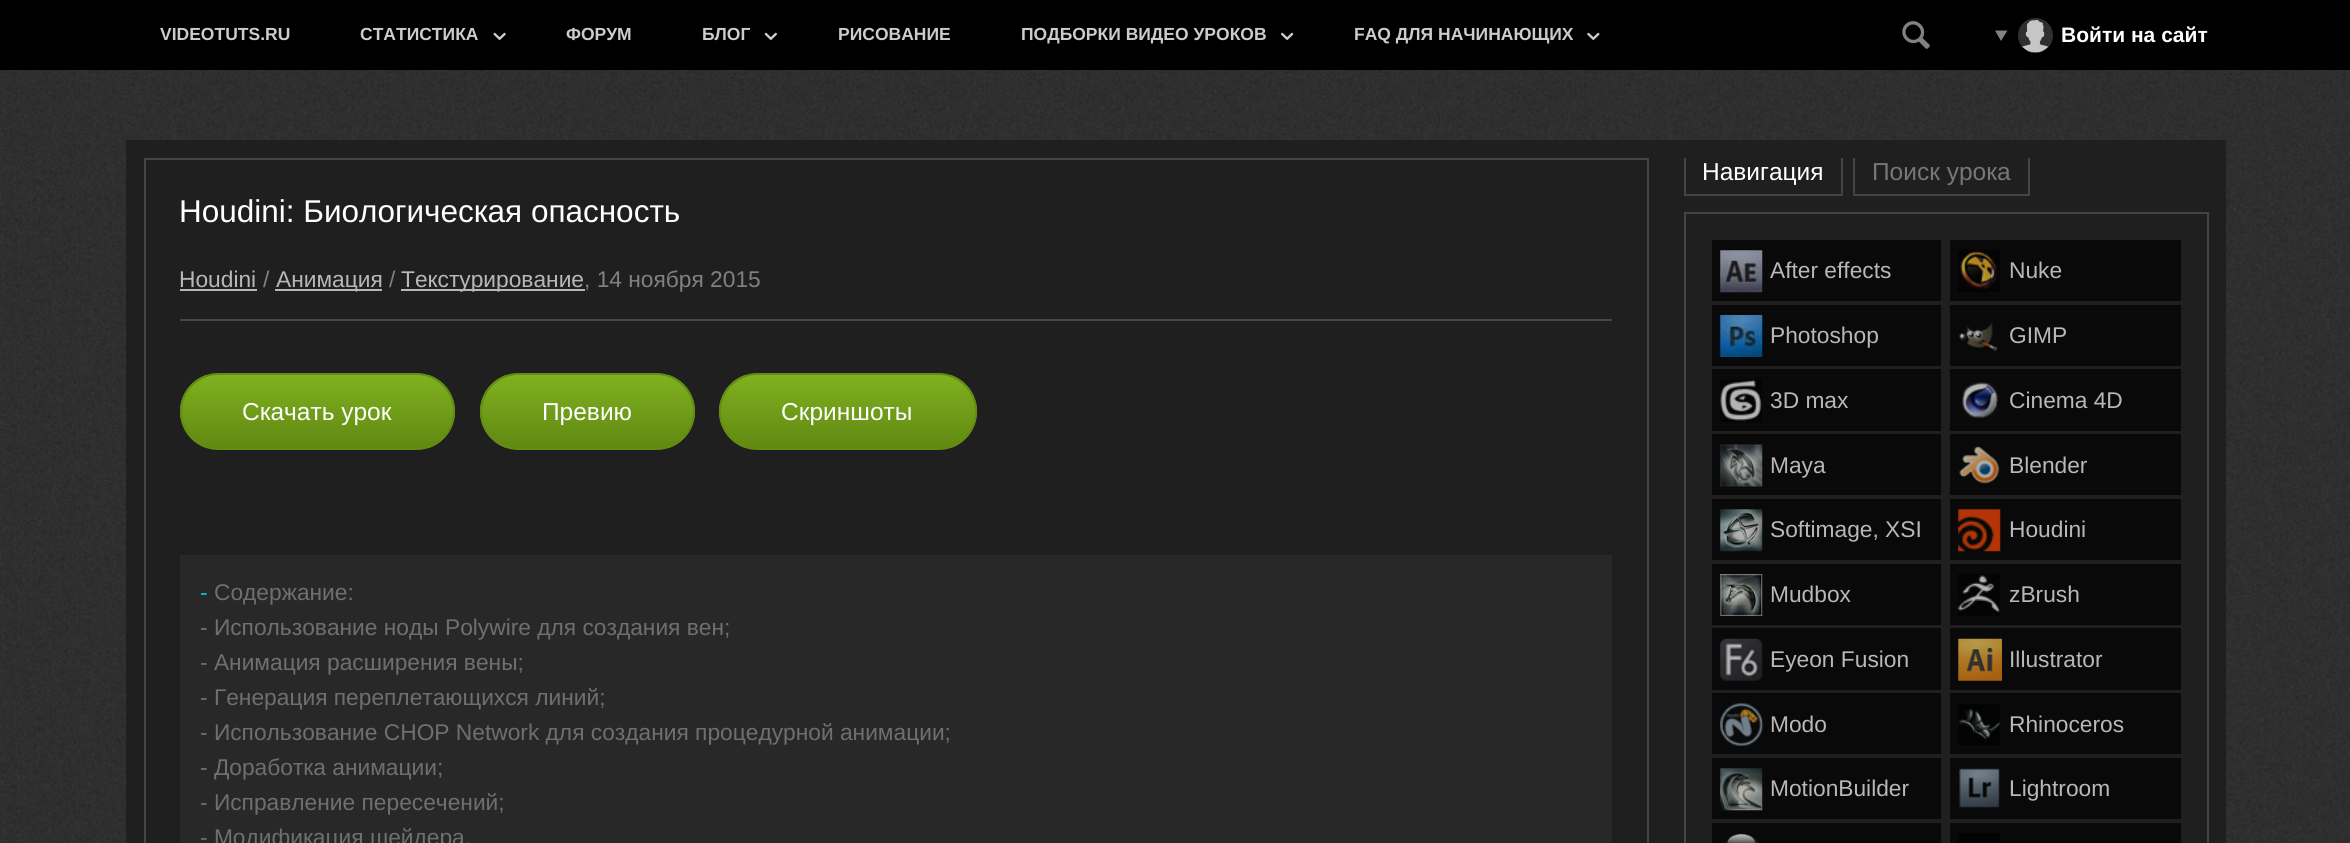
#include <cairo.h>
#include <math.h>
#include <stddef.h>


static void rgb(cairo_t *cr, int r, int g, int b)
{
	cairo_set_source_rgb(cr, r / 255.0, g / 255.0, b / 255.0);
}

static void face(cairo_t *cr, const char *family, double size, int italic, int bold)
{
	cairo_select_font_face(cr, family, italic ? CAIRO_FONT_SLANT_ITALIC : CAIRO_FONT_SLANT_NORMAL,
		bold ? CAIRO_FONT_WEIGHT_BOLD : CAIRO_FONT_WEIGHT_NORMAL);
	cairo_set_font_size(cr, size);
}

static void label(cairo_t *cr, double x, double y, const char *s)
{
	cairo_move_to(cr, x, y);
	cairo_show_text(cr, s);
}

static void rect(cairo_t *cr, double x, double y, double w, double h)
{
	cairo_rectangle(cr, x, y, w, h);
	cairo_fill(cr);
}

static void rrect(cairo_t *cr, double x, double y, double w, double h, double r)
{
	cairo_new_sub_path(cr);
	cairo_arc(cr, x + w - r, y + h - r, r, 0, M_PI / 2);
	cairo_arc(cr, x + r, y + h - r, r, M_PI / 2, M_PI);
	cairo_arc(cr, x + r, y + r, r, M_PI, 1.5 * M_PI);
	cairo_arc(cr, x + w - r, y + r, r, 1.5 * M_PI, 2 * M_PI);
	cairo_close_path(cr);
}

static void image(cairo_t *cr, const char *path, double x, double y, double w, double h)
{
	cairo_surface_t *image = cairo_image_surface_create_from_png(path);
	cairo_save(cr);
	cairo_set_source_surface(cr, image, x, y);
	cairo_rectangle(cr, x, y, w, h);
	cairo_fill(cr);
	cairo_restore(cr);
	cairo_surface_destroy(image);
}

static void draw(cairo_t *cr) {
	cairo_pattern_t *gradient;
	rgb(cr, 255, 255, 255);
	cairo_paint(cr);
	image(cr, "image0.png", 0, 70, 2350, 773);
	rgb(cr, 0, 0, 0);
	rect(cr, 0, 0, 2350, 70);
	face(cr, "Liberation Sans", 17.5, 0, 1);
	rgb(cr, 204, 204, 204);
	label(cr, 160, 40, "VIDEOTUTS.RU");
	label(cr, 360, 40, "СТАТИСТИКА");
	image(cr, "image1.png", 493, 32, 13, 8);
	label(cr, 566, 40, "ФОРУМ");
	label(cr, 702, 40, "БЛОГ");
	image(cr, "image2.png", 764, 32, 13, 8);
	label(cr, 838, 40, "РИСОВАНИЕ");
	label(cr, 1021, 40, "ПОДБОРКИ ВИДЕО УРОКОВ");
	image(cr, "image3.png", 1281, 32, 13, 8);
	label(cr, 1354, 40, "FAQ ДЛЯ НАЧИНАЮЩИХ");
	image(cr, "image4.png", 1587, 32, 13, 8);
	image(cr, "image5.png", 1902, 21, 28, 28);
	rgb(cr, 129, 129, 129);
	cairo_new_path(cr);
	cairo_move_to(cr, 2007.5, 30.5);
	cairo_line_to(cr, 2001, 41);
	cairo_line_to(cr, 1995, 30.5);
	cairo_close_path(cr);
	cairo_fill(cr);
	rgb(cr, 47, 47, 47);
	cairo_arc(cr, 2035.5, 35.5, 17.5, 0, 2 * M_PI);
	cairo_fill(cr);
	image(cr, "image6.png", 2022, 20, 27, 33);
	face(cr, "Liberation Sans", 21, 0, 1);
	rgb(cr, 255, 255, 255);
	label(cr, 2061, 42, "Войти на сайт");
	rgb(cr, 31, 31, 31);
	rect(cr, 126, 140, 2100, 703);
	cairo_rectangle(cr, 145, 159, 1503, 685);
	rgb(cr, 68, 68, 68);
	cairo_stroke(cr);
	face(cr, "Liberation Sans", 31.5, 0, 0);
	rgb(cr, 255, 255, 255);
	label(cr, 179, 222, "Houdini: Биологическая опасность");
	rgb(cr, 71, 71, 71);
	rect(cr, 180, 319, 1432, 2);
	face(cr, "Liberation Sans", 22.75, 0, 0);
	rgb(cr, 184, 184, 184);
	label(cr, 179, 287, "Houdini");
	rect(cr, 180, 289, 77, 2);
	rgb(cr, 129, 129, 129);
	label(cr, 263, 287, "/");
	rgb(cr, 184, 184, 184);
	rect(cr, 275, 289, 107, 2);
	label(cr, 276, 287, "Анимация");
	rgb(cr, 129, 129, 129);
	label(cr, 389, 287, "/");
	rgb(cr, 184, 184, 184);
	rect(cr, 401, 289, 184, 2);
	label(cr, 401, 287, "Текстурирование");
	rgb(cr, 129, 129, 129);
	label(cr, 584, 287, ", 14 ноября 2015");
	cairo_save(cr);
	rrect(cr, 180, 373, 275, 77, 38.5);
	cairo_clip(cr);
	gradient = cairo_pattern_create_linear(318, 448, 318, 375);
	cairo_pattern_add_color_stop_rgba(gradient, 0, 0.38, 0.537, 0.075, 1);
	cairo_pattern_add_color_stop_rgba(gradient, 1, 0.498, 0.694, 0.122, 1);
	cairo_set_source(cr, gradient);
	cairo_pattern_destroy(gradient);
	rect(cr, 180, 375, 275, 73);
	cairo_restore(cr);
	rrect(cr, 181, 374, 273, 75, 37.5);
	rgb(cr, 98, 141, 17);
	cairo_stroke(cr);
	face(cr, "Liberation Sans", 24.5, 0, 0);
	rgb(cr, 255, 255, 255);
	label(cr, 242, 420, "Скачать урок");
	cairo_save(cr);
	rrect(cr, 480, 373, 215, 77, 38.5);
	cairo_clip(cr);
	gradient = cairo_pattern_create_linear(587, 448, 587, 375);
	cairo_pattern_add_color_stop_rgba(gradient, 0, 0.38, 0.537, 0.075, 1);
	cairo_pattern_add_color_stop_rgba(gradient, 1, 0.498, 0.694, 0.122, 1);
	cairo_set_source(cr, gradient);
	cairo_pattern_destroy(gradient);
	rect(cr, 480, 375, 215, 73);
	cairo_restore(cr);
	rrect(cr, 481, 374, 213, 75, 37.5);
	rgb(cr, 98, 141, 17);
	cairo_stroke(cr);
	rgb(cr, 255, 255, 255);
	label(cr, 542, 420, "Превию");
	cairo_save(cr);
	rrect(cr, 719, 373, 258, 77, 38.5);
	cairo_clip(cr);
	gradient = cairo_pattern_create_linear(848, 448, 848, 375);
	cairo_pattern_add_color_stop_rgba(gradient, 0, 0.38, 0.537, 0.075, 1);
	cairo_pattern_add_color_stop_rgba(gradient, 1, 0.498, 0.694, 0.122, 1);
	cairo_set_source(cr, gradient);
	cairo_pattern_destroy(gradient);
	rect(cr, 719, 375, 258, 73);
	cairo_restore(cr);
	rrect(cr, 720, 374, 256, 75, 37.5);
	rgb(cr, 98, 141, 17);
	cairo_stroke(cr);
	rgb(cr, 255, 255, 255);
	label(cr, 781, 420, "Скриншоты");
	rgb(cr, 41, 40, 40);
	rect(cr, 180, 555, 1432, 288);
	face(cr, "Liberation Sans", 22.75, 0, 0);
	rgb(cr, 0, 204, 204);
	label(cr, 200, 600, "-");
	rgb(cr, 111, 111, 111);
	label(cr, 214, 600, "Содержание:");
	label(cr, 200, 635, "- Использование ноды Polywire для создания вен;");
	label(cr, 200, 670, "- Анимация расширения вены;");
	label(cr, 200, 705, "- Генерация переплетающихся линий;");
	label(cr, 200, 740, "- Использование CHOP Network для создания процедурной анимации;");
	label(cr, 200, 775, "- Доработка анимации;");
	label(cr, 200, 810, "- Исправление пересечений;");
	label(cr, 200, 845, "- Модификация шейдера.");
	cairo_save(cr);
	cairo_rectangle(cr, 144, 158, 2065, 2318);
	cairo_clip(cr);
	cairo_rectangle(cr, 1685, 148, 157, 47);
	rgb(cr, 68, 68, 68);
	cairo_stroke(cr);
	cairo_restore(cr);
	face(cr, "Liberation Sans", 24.5, 0, 0);
	rgb(cr, 255, 255, 255);
	label(cr, 1702, 180, "Навигация");
	cairo_save(cr);
	cairo_rectangle(cr, 144, 158, 2065, 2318);
	cairo_clip(cr);
	cairo_rectangle(cr, 1854, 148, 175, 47);
	rgb(cr, 68, 68, 68);
	cairo_stroke(cr);
	cairo_restore(cr);
	rgb(cr, 119, 119, 119);
	label(cr, 1872, 180, "Поиск урока");
	cairo_rectangle(cr, 1685, 213, 523, 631);
	rgb(cr, 68, 68, 68);
	cairo_stroke(cr);
	rgb(cr, 9, 9, 9);
	rect(cr, 1712, 240, 229, 61);
	image(cr, "image7.png", 1720, 250, 43, 43);
	face(cr, "Liberation Sans", 22.75, 0, 0);
	rgb(cr, 184, 184, 184);
	label(cr, 1770, 278, "After effects");
	rgb(cr, 9, 9, 9);
	rect(cr, 1712, 305, 229, 61);
	image(cr, "image8.png", 1720, 315, 43, 42);
	rgb(cr, 184, 184, 184);
	label(cr, 1770, 343, "Photoshop");
	rgb(cr, 9, 9, 9);
	rect(cr, 1712, 369, 229, 62);
	image(cr, "image9.png", 1720, 379, 42, 43);
	rgb(cr, 184, 184, 184);
	label(cr, 1770, 408, "3D max");
	rgb(cr, 9, 9, 9);
	rect(cr, 1712, 434, 229, 61);
	image(cr, "image10.png", 1720, 444, 43, 43);
	rgb(cr, 184, 184, 184);
	label(cr, 1770, 473, "Maya");
	rgb(cr, 9, 9, 9);
	rect(cr, 1712, 499, 229, 61);
	image(cr, "image11.png", 1720, 509, 43, 43);
	rgb(cr, 184, 184, 184);
	label(cr, 1770, 537, "Softimage, XSI");
	rgb(cr, 9, 9, 9);
	rect(cr, 1712, 564, 229, 61);
	image(cr, "image12.png", 1720, 574, 43, 42);
	rgb(cr, 184, 184, 184);
	label(cr, 1770, 602, "Mudbox");
	rgb(cr, 9, 9, 9);
	rect(cr, 1712, 628, 229, 62);
	image(cr, "image13.png", 1720, 638, 43, 43);
	rgb(cr, 184, 184, 184);
	label(cr, 1770, 667, "Eyeon Fusion");
	rgb(cr, 9, 9, 9);
	rect(cr, 1712, 693, 229, 61);
	image(cr, "image14.png", 1720, 703, 43, 43);
	rgb(cr, 184, 184, 184);
	label(cr, 1770, 732, "Modo");
	rgb(cr, 9, 9, 9);
	rect(cr, 1712, 758, 229, 61);
	image(cr, "image15.png", 1720, 768, 43, 43);
	rgb(cr, 184, 184, 184);
	label(cr, 1770, 796, "MotionBuilder");
	rgb(cr, 9, 9, 9);
	rect(cr, 1712, 823, 229, 20);
	image(cr, "image16.png", 1725, 833, 33, 10);
	rect(cr, 1950, 240, 231, 61);
	image(cr, "image17.png", 1958, 250, 42, 42);
	rgb(cr, 184, 184, 184);
	label(cr, 2009, 278, "Nuke");
	rgb(cr, 9, 9, 9);
	rect(cr, 1950, 305, 231, 61);
	image(cr, "image18.png", 1959, 322, 40, 30);
	rgb(cr, 184, 184, 184);
	label(cr, 2009, 343, "GIMP");
	rgb(cr, 9, 9, 9);
	rect(cr, 1950, 369, 231, 62);
	image(cr, "image19.png", 1962, 382, 36, 36);
	rgb(cr, 184, 184, 184);
	label(cr, 2009, 408, "Cinema 4D");
	rgb(cr, 9, 9, 9);
	rect(cr, 1950, 434, 231, 61);
	image(cr, "image20.png", 1959, 445, 41, 39);
	rgb(cr, 184, 184, 184);
	label(cr, 2009, 473, "Blender");
	rgb(cr, 9, 9, 9);
	rect(cr, 1950, 499, 231, 61);
	image(cr, "image21.png", 1958, 509, 43, 43);
	rgb(cr, 184, 184, 184);
	label(cr, 2009, 537, "Houdini");
	rgb(cr, 9, 9, 9);
	rect(cr, 1950, 564, 231, 61);
	image(cr, "image22.png", 1958, 574, 42, 42);
	rgb(cr, 184, 184, 184);
	label(cr, 2009, 602, "zBrush");
	rgb(cr, 9, 9, 9);
	rect(cr, 1950, 628, 231, 62);
	image(cr, "image23.png", 1958, 638, 44, 43);
	rgb(cr, 184, 184, 184);
	label(cr, 2009, 667, "Illustrator");
	rgb(cr, 9, 9, 9);
	rect(cr, 1950, 693, 231, 61);
	image(cr, "image24.png", 1958, 704, 43, 41);
	rgb(cr, 184, 184, 184);
	label(cr, 2009, 732, "Rhinoceros");
	rgb(cr, 9, 9, 9);
	rect(cr, 1950, 758, 231, 61);
	image(cr, "image25.png", 1959, 768, 41, 40);
	rgb(cr, 184, 184, 184);
	label(cr, 2009, 796, "Lightroom");
	rgb(cr, 9, 9, 9);
	rect(cr, 1950, 823, 231, 20);
	image(cr, "image26.png", 1958, 833, 42, 10);
}

int main(void) {
	cairo_surface_t *surface = cairo_image_surface_create(CAIRO_FORMAT_RGB24, 2350, 843);
	cairo_t *cr = cairo_create(surface);
	cairo_font_options_t *options = cairo_font_options_create();
	cairo_font_options_set_hint_metrics(options, CAIRO_HINT_METRICS_OFF);
	cairo_font_options_set_hint_style(options, CAIRO_HINT_STYLE_NONE);
	cairo_set_font_options(cr, options);
	cairo_set_miter_limit(cr, 4);
	draw(cr);
	cairo_surface_write_to_png(surface, "render.png");
	cairo_font_options_destroy(options);
	cairo_destroy(cr);
	cairo_surface_destroy(surface);
	return 0;
}
